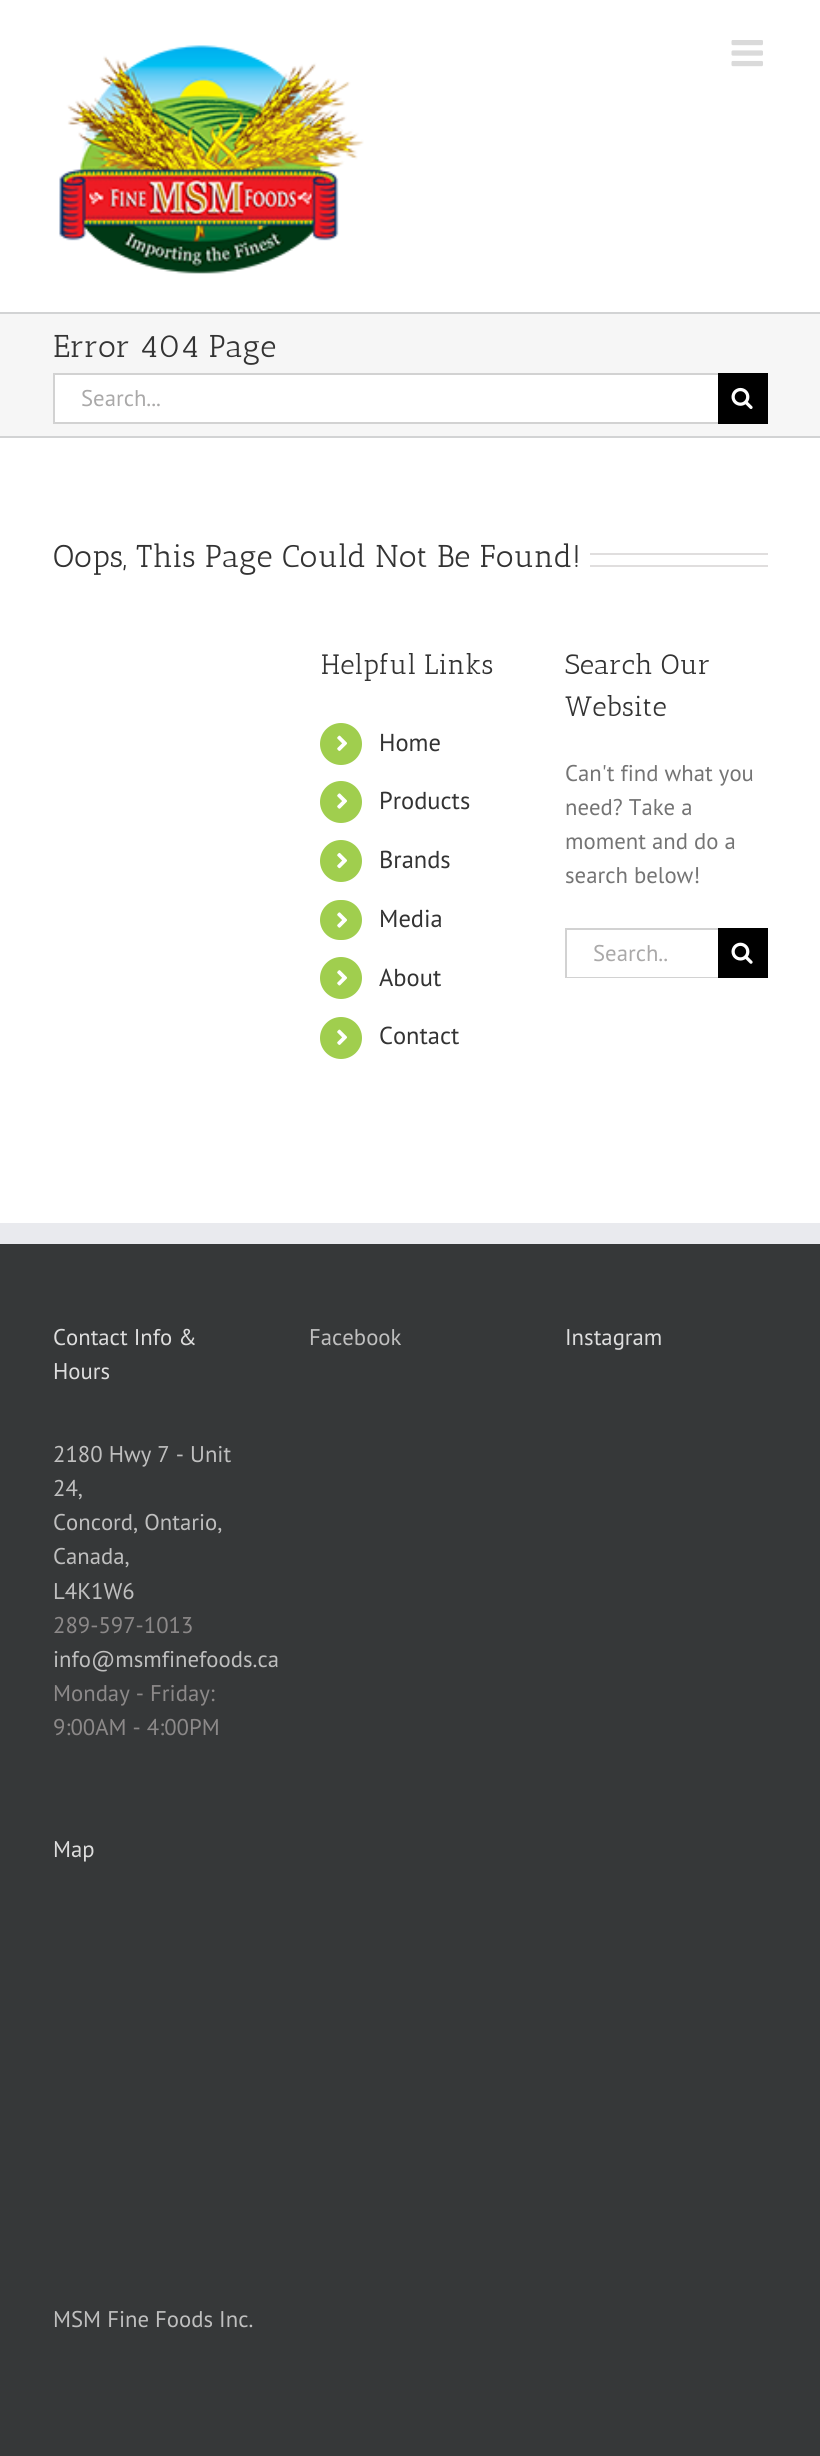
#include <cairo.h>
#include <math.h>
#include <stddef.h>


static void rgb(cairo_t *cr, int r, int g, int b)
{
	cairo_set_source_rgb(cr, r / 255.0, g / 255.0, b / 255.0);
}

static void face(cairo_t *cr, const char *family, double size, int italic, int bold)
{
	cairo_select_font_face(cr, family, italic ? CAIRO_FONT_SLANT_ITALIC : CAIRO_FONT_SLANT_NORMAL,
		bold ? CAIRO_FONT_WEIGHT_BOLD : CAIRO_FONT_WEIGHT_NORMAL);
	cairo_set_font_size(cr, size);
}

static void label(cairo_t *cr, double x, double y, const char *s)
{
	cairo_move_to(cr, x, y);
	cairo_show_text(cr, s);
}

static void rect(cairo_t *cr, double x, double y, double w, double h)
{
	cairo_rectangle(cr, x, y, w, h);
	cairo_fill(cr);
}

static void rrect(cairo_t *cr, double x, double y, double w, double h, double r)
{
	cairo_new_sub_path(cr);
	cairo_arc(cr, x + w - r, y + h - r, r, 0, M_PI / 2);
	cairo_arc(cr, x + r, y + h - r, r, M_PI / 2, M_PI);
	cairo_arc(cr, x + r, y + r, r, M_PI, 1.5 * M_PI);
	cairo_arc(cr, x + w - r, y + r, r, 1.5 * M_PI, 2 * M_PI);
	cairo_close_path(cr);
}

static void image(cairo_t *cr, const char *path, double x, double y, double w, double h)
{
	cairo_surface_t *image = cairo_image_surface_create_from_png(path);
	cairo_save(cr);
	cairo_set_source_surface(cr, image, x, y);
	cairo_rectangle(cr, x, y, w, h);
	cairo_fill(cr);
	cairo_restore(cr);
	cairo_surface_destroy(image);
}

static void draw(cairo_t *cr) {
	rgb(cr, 255, 255, 255);
	cairo_paint(cr);
	image(cr, "image0.png", 59, 45, 305, 229);
	image(cr, "image1.png", 731, 40, 32, 27);
	rgb(cr, 246, 246, 246);
	rect(cr, 0, 314, 820, 122);
	rgb(cr, 210, 211, 212);
	rect(cr, 0, 312, 820, 2);
	rect(cr, 0, 436, 820, 2);
	face(cr, "Antic Slab", 31.5, 0, 0);
	rgb(cr, 51, 51, 51);
	label(cr, 53, 357, "Error 404 Page");
	rgb(cr, 255, 255, 255);
	rect(cr, 55, 375, 663, 47);
	rgb(cr, 210, 210, 210);
	rect(cr, 53, 373, 665, 2);
	rect(cr, 53, 422, 665, 2);
	rect(cr, 53, 373, 2, 51);
	face(cr, "PT Sans", 22.75, 0, 0);
	rgb(cr, 170, 169, 169);
	label(cr, 81, 406, "Search...");
	rgb(cr, 0, 0, 0);
	rect(cr, 718, 373, 50, 51);
	image(cr, "image2.png", 731, 387, 22, 22);
	face(cr, "Antic Slab", 31.5, 0, 0);
	rgb(cr, 51, 51, 51);
	label(cr, 53, 567, "Oops, This Page Could Not Be Found!");
	rgb(cr, 224, 222, 222);
	rect(cr, 590, 553, 178, 2);
	rect(cr, 590, 565, 178, 2);
	face(cr, "Antic Slab", 28, 0, 0);
	rgb(cr, 51, 51, 51);
	label(cr, 321, 674, "Helpful Links");
	rgb(cr, 160, 206, 78);
	cairo_new_path(cr);
	cairo_arc(cr, 341, 744, 21, 0, 2 * M_PI);
	cairo_fill(cr);
	image(cr, "image3.png", 337, 735, 10, 16);
	face(cr, "PT Sans", 24.5, 0, 0);
	rgb(cr, 51, 51, 51);
	label(cr, 379, 751, "Home");
	rgb(cr, 160, 206, 78);
	cairo_new_path(cr);
	cairo_arc(cr, 341, 802, 21, 0, 2 * M_PI);
	cairo_fill(cr);
	image(cr, "image4.png", 337, 793, 10, 16);
	rgb(cr, 51, 51, 51);
	label(cr, 379, 809, "Products");
	rgb(cr, 160, 206, 78);
	cairo_new_path(cr);
	cairo_arc(cr, 341, 861, 21, 0, 2 * M_PI);
	cairo_fill(cr);
	image(cr, "image5.png", 337, 852, 10, 17);
	rgb(cr, 51, 51, 51);
	label(cr, 379, 868, "Brands");
	rgb(cr, 160, 206, 78);
	rrect(cr, 320, 900, 42, 40, 20);
	cairo_fill(cr);
	image(cr, "image4.png", 337, 912, 10, 16);
	rgb(cr, 51, 51, 51);
	label(cr, 379, 927, "Media");
	rgb(cr, 160, 206, 78);
	cairo_new_path(cr);
	cairo_arc(cr, 341, 978, 21, 0, 2 * M_PI);
	cairo_fill(cr);
	image(cr, "image6.png", 337, 970, 10, 16);
	rgb(cr, 51, 51, 51);
	label(cr, 379, 986, "About");
	rgb(cr, 160, 206, 78);
	cairo_new_path(cr);
	cairo_arc(cr, 341, 1038, 21, 0, 2 * M_PI);
	cairo_fill(cr);
	image(cr, "image3.png", 337, 1029, 10, 16);
	rgb(cr, 51, 51, 51);
	label(cr, 379, 1044, "Contact");
	face(cr, "Antic Slab", 28, 0, 0);
	label(cr, 565, 674, "Search Our");
	label(cr, 565, 716, "Website");
	face(cr, "PT Sans", 22.75, 0, 0);
	rgb(cr, 116, 116, 116);
	label(cr, 565, 781, "Can't find what you");
	label(cr, 565, 815, "need? Take a");
	label(cr, 565, 849, "moment and do a");
	label(cr, 565, 883, "search below!");
	rgb(cr, 210, 210, 210);
	rect(cr, 565, 928, 153, 2);
	rect(cr, 565, 977, 153, 1);
	rect(cr, 565, 928, 2, 50);
	rgb(cr, 170, 169, 169);
	label(cr, 593, 961, "Search..");
	rgb(cr, 0, 0, 0);
	rect(cr, 718, 928, 50, 50);
	image(cr, "image7.png", 731, 942, 22, 22);
	rgb(cr, 54, 56, 57);
	rect(cr, 0, 1244, 820, 1212);
	rgb(cr, 233, 234, 238);
	rect(cr, 0, 1223, 820, 21);
	rgb(cr, 221, 221, 221);
	label(cr, 53, 1345, "Contact Info &");
	label(cr, 53, 1379, "Hours");
	rgb(cr, 191, 191, 191);
	label(cr, 53, 1462, "2180 Hwy 7 - Unit");
	label(cr, 53, 1496, "24,");
	label(cr, 53, 1530, "Concord, Ontario,");
	label(cr, 53, 1564, "Canada,");
	label(cr, 53, 1599, "L4K1W6");
	rgb(cr, 140, 137, 137);
	label(cr, 53, 1633, "289-597-1013");
	rgb(cr, 191, 191, 191);
	label(cr, 53, 1667, "info@msmfinefoods.ca");
	rgb(cr, 140, 137, 137);
	label(cr, 53, 1701, "Monday - Friday:");
	label(cr, 53, 1735, "9:00AM - 4:00PM");
	rgb(cr, 221, 221, 221);
	label(cr, 53, 1857, "Map");
	rgb(cr, 191, 191, 191);
	label(cr, 53, 2327, "MSM Fine Foods Inc.");
	label(cr, 309, 1345, "Facebook");
	rgb(cr, 221, 221, 221);
	label(cr, 565, 1345, "Instagram");
}

int main(void) {
	cairo_surface_t *surface = cairo_image_surface_create(CAIRO_FORMAT_RGB24, 820, 2456);
	cairo_t *cr = cairo_create(surface);
	cairo_font_options_t *options = cairo_font_options_create();
	cairo_font_options_set_hint_metrics(options, CAIRO_HINT_METRICS_OFF);
	cairo_font_options_set_hint_style(options, CAIRO_HINT_STYLE_NONE);
	cairo_set_font_options(cr, options);
	cairo_set_miter_limit(cr, 4);
	draw(cr);
	cairo_surface_write_to_png(surface, "render.png");
	cairo_font_options_destroy(options);
	cairo_destroy(cr);
	cairo_surface_destroy(surface);
	return 0;
}
